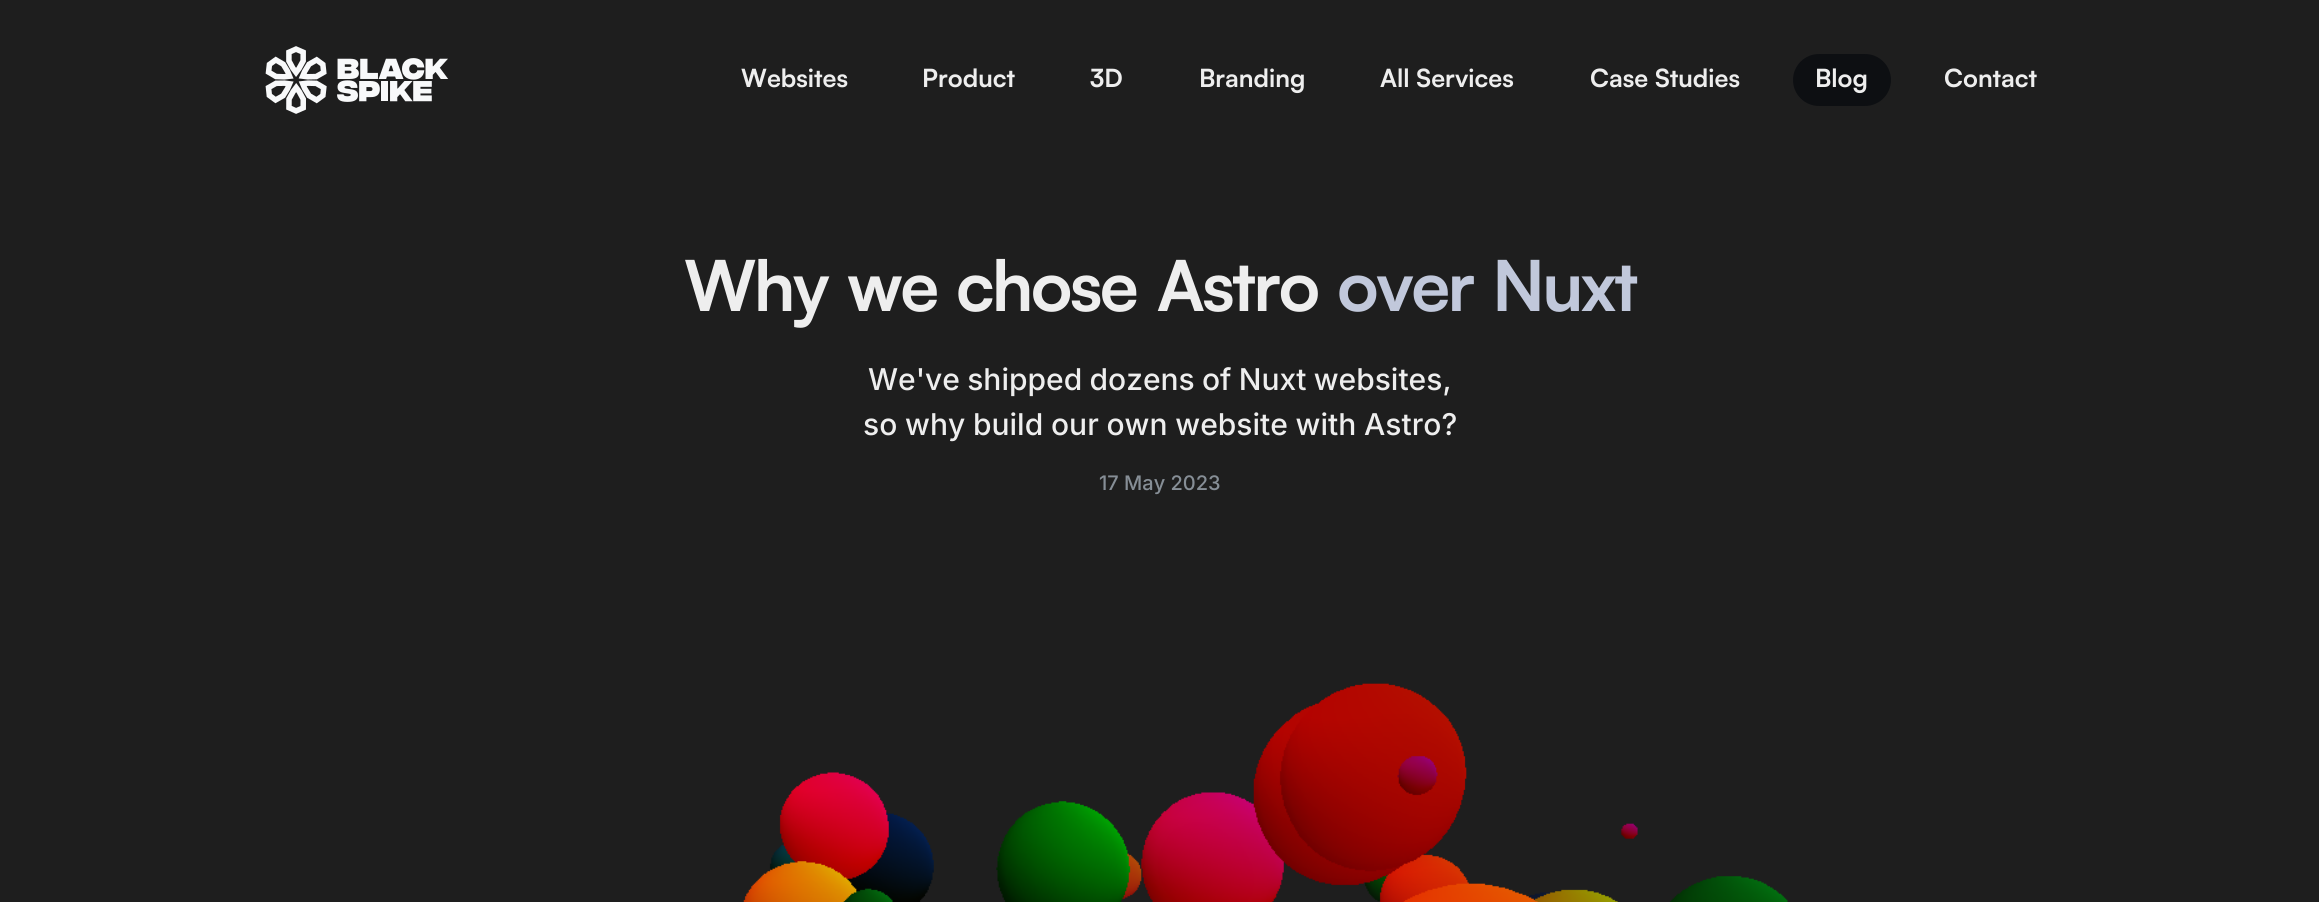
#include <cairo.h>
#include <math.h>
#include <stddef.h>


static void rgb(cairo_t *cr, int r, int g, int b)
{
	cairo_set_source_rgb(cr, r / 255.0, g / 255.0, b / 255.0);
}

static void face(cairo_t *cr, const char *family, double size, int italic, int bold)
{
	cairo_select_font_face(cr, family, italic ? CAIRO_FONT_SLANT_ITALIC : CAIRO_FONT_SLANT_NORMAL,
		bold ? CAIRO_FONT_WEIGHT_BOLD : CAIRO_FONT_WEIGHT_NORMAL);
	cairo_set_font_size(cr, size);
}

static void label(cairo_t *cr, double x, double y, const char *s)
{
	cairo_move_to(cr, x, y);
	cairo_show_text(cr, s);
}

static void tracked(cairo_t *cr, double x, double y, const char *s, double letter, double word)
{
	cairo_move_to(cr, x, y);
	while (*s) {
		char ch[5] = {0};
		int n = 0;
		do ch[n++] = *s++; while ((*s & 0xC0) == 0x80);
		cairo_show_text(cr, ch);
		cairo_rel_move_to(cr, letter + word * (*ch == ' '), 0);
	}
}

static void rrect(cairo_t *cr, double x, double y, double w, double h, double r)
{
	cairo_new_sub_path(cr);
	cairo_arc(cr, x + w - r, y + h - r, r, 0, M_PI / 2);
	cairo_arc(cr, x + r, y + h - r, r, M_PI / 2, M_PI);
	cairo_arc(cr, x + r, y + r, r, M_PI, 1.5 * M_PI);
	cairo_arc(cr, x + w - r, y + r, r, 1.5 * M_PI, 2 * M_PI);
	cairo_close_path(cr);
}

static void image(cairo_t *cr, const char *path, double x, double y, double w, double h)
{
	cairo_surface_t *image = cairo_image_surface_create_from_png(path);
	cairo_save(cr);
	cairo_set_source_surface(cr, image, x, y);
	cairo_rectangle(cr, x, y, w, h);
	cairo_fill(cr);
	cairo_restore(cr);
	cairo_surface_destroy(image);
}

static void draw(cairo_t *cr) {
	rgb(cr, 30, 30, 30);
	cairo_paint(cr);
	image(cr, "image0.png", 265, 46, 184, 68);
	face(cr, "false", 25, 0, 1);
	rgb(cr, 238, 238, 238);
	label(cr, 741, 87, "Websites");
	label(cr, 922, 87, "Product");
	label(cr, 1090, 87, "3D");
	label(cr, 1199, 87, "Branding");
	label(cr, 1380, 87, "All Services");
	label(cr, 1590, 87, "Case Studies");
	rgb(cr, 13, 15, 18);
	rrect(cr, 1793, 54, 98, 52, 26);
	cairo_fill(cr);
	rgb(cr, 238, 238, 238);
	label(cr, 1815, 87, "Blog");
	label(cr, 1944, 87, "Contact");
	face(cr, "false", 70, 0, 1);
	tracked(cr, 684, 311, "Why", -2.5, 0);
	tracked(cr, 847, 311, "we", -2.5, 0);
	tracked(cr, 956, 311, "chose", -2.5, 0);
	tracked(cr, 1157, 311, "Astro", -2.5, 0);
	rgb(cr, 193, 200, 219);
	tracked(cr, 1337, 311, "over", -2.5, 0);
	tracked(cr, 1492, 311, "Nuxt", -2.5, 0);
	face(cr, "Inter Medium", 30, 0, 0);
	rgb(cr, 238, 238, 238);
	tracked(cr, 868, 390, "We've shipped dozens of Nuxt websites,", 0, -0.75);
	tracked(cr, 863, 435, "so why build our own website with Astro?", 0, -0.25);
	face(cr, "Inter Medium", 20, 0, 0);
	rgb(cr, 134, 142, 150);
	label(cr, 1099, 490, "17 May 2023");
	image(cr, "image1.png", 743, 683, 1045, 219);
}

int main(void) {
	cairo_surface_t *surface = cairo_image_surface_create(CAIRO_FORMAT_RGB24, 2319, 902);
	cairo_t *cr = cairo_create(surface);
	cairo_font_options_t *options = cairo_font_options_create();
	cairo_font_options_set_hint_metrics(options, CAIRO_HINT_METRICS_OFF);
	cairo_font_options_set_hint_style(options, CAIRO_HINT_STYLE_NONE);
	cairo_set_font_options(cr, options);
	cairo_set_miter_limit(cr, 4);
	draw(cr);
	cairo_surface_write_to_png(surface, "render.png");
	cairo_font_options_destroy(options);
	cairo_destroy(cr);
	cairo_surface_destroy(surface);
	return 0;
}
